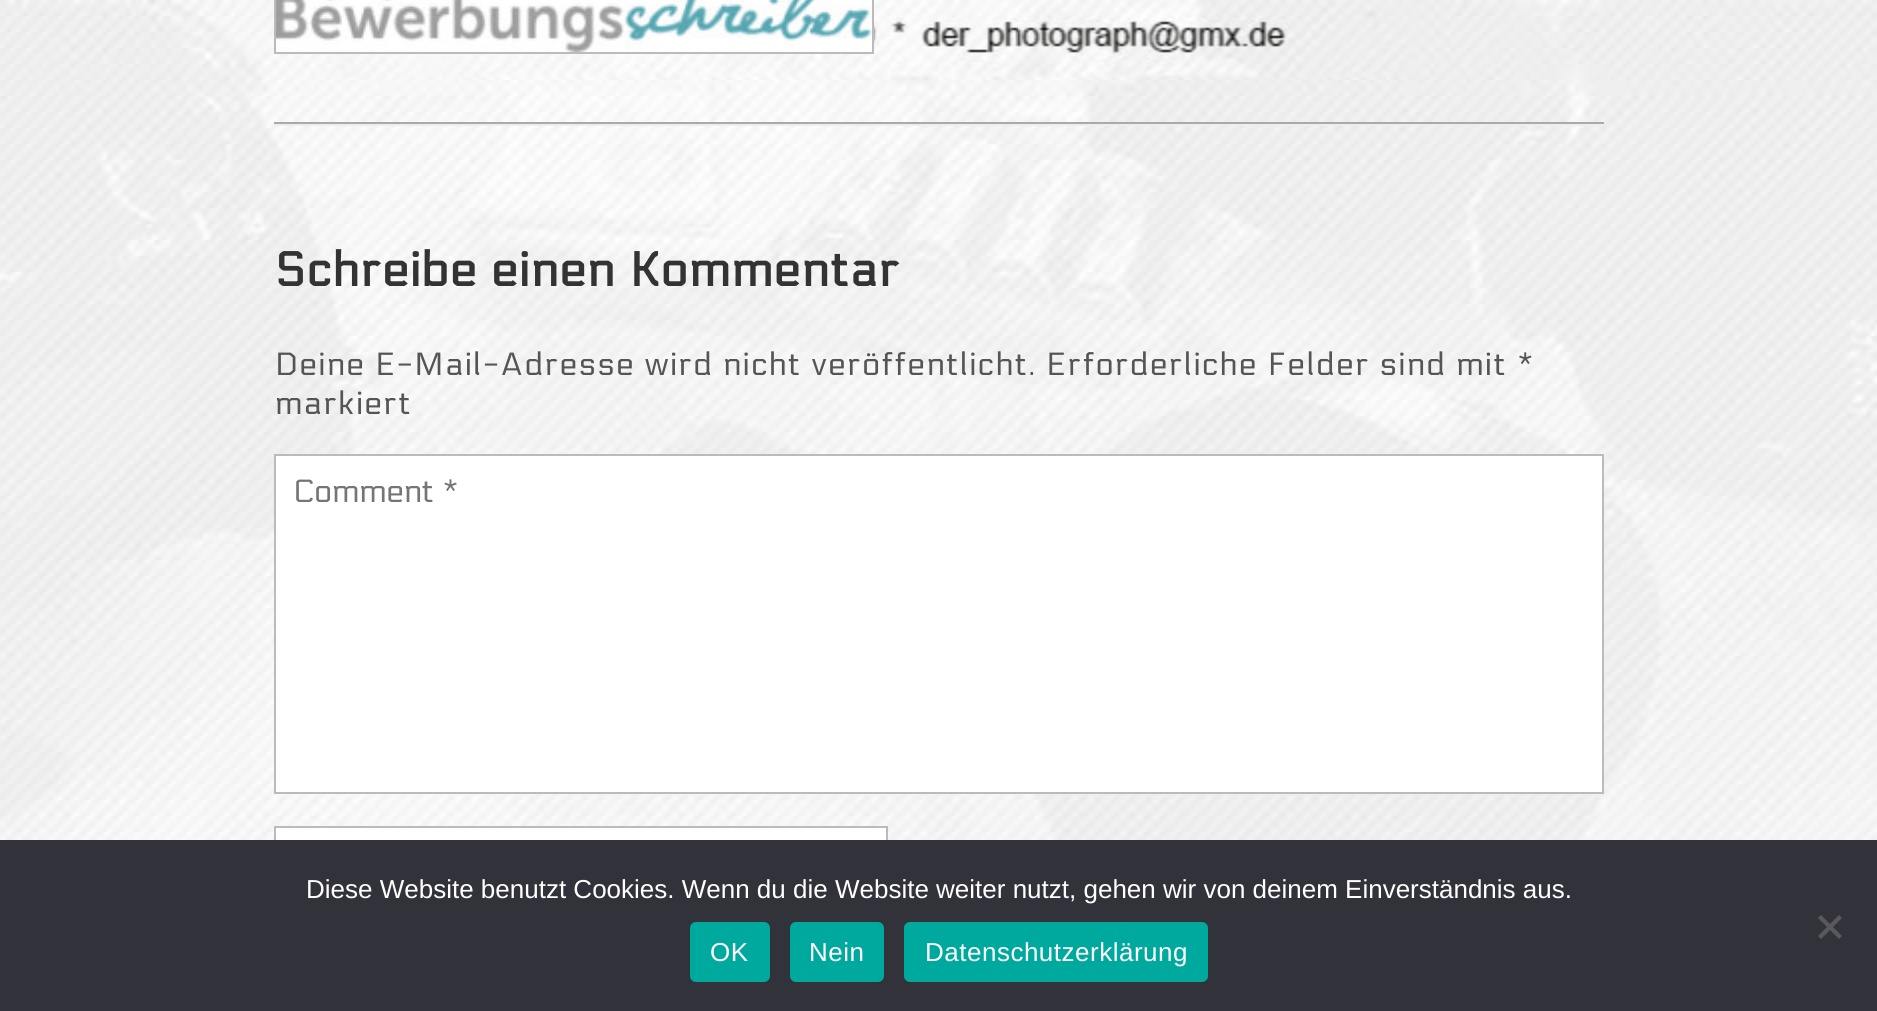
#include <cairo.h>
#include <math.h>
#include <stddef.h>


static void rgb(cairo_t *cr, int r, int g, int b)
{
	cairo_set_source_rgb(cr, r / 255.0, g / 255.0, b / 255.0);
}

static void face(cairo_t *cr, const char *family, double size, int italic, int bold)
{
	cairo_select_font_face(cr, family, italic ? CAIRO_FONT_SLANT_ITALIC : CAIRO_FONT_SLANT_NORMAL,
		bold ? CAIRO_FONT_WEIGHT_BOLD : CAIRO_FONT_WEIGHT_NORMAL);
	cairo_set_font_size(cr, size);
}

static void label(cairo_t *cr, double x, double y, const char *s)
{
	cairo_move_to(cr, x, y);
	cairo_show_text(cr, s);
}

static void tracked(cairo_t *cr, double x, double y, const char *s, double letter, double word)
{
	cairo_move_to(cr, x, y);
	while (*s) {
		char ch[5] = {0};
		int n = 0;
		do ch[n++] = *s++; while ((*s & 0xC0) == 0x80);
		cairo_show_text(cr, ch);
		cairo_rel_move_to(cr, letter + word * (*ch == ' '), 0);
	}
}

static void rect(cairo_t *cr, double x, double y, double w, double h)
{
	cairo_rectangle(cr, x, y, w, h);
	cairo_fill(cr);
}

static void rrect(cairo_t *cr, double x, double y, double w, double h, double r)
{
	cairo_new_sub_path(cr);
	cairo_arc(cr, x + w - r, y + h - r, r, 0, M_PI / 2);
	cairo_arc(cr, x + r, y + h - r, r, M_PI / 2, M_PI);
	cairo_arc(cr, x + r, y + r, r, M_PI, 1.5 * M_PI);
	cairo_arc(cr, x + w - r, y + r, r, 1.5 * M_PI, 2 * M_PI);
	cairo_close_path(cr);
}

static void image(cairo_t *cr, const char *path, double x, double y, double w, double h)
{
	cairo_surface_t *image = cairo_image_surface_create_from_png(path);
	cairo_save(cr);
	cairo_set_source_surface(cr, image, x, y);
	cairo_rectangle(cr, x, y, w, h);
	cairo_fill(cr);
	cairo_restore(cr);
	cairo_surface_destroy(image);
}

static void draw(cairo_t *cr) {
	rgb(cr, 255, 255, 255);
	cairo_paint(cr);
	image(cr, "image0.png", 0, 0, 1877, 840);
	rgb(cr, 238, 238, 238);
	rect(cr, 274, 124, 1330, 2);
	rgb(cr, 170, 170, 170);
	rect(cr, 274, 122, 1330, 2);
	cairo_rectangle(cr, 275, -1, 598, 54);
	rgb(cr, 187, 187, 187);
	cairo_stroke(cr);
	image(cr, "image1.png", 276, 0, 596, 52);
	face(cr, "Electrolize", 48, 0, 1);
	rgb(cr, 51, 51, 51);
	tracked(cr, 275, 286, "Schreibe einen Kommentar", 1.6, 0);
	face(cr, "Electrolize", 32, 0, 0);
	rgb(cr, 85, 85, 85);
	tracked(cr, 275, 375, "Deine E-Mail-Adresse wird nicht veröffentlicht. Erforderliche Felder sind mit *", 1.6, 0);
	tracked(cr, 275, 414, "markiert", 1.6, 0);
	rgb(cr, 255, 255, 255);
	cairo_rectangle(cr, 275, 455, 1328, 338);
	cairo_fill_preserve(cr);
	rgb(cr, 187, 187, 187);
	cairo_stroke(cr);
	rgb(cr, 117, 117, 117);
	label(cr, 293, 502, "Comment *");
	rgb(cr, 255, 255, 255);
	rect(cr, 276, 828, 610, 12);
	cairo_rectangle(cr, 275, 827, 612, 72);
	rgb(cr, 187, 187, 187);
	cairo_stroke(cr);
	rgb(cr, 50, 50, 58);
	rect(cr, 0, 840, 1877, 171);
	face(cr, "Liberation Sans", 26, 0, 0);
	rgb(cr, 255, 255, 255);
	label(cr, 306, 898, "Diese Website benutzt Cookies. Wenn du die Website weiter nutzt, gehen wir von deinem Einverständnis aus.");
	rgb(cr, 89, 89, 93);
	cairo_new_path(cr);
	cairo_move_to(cr, 1839, 915);
	cairo_line_to(cr, 1842, 918);
	cairo_line_to(cr, 1821, 939);
	cairo_line_to(cr, 1818, 936);
	cairo_close_path(cr);
	cairo_fill(cr);
	cairo_new_path(cr);
	cairo_move_to(cr, 1818, 918);
	cairo_line_to(cr, 1821, 915);
	cairo_line_to(cr, 1842, 936);
	cairo_line_to(cr, 1839, 939);
	cairo_close_path(cr);
	cairo_fill(cr);
	rgb(cr, 0, 169, 157);
	rrect(cr, 690, 922, 80, 60, 6);
	cairo_fill(cr);
	rgb(cr, 255, 255, 255);
	tracked(cr, 710, 961, "OK", 0.5, 0);
	rgb(cr, 0, 169, 157);
	rrect(cr, 790, 922, 94, 60, 6);
	cairo_fill(cr);
	rgb(cr, 255, 255, 255);
	tracked(cr, 809, 961, "Nein", 0.5, 0);
	rgb(cr, 0, 169, 157);
	rrect(cr, 904, 922, 304, 60, 6);
	cairo_fill(cr);
	rgb(cr, 255, 255, 255);
	tracked(cr, 925, 961, "Datenschutzerklärung", 0.5, 0);
}

int main(void) {
	cairo_surface_t *surface = cairo_image_surface_create(CAIRO_FORMAT_RGB24, 1877, 1011);
	cairo_t *cr = cairo_create(surface);
	cairo_font_options_t *options = cairo_font_options_create();
	cairo_font_options_set_hint_metrics(options, CAIRO_HINT_METRICS_OFF);
	cairo_font_options_set_hint_style(options, CAIRO_HINT_STYLE_NONE);
	cairo_set_font_options(cr, options);
	cairo_set_miter_limit(cr, 4);
	draw(cr);
	cairo_surface_write_to_png(surface, "render.png");
	cairo_font_options_destroy(options);
	cairo_destroy(cr);
	cairo_surface_destroy(surface);
	return 0;
}
